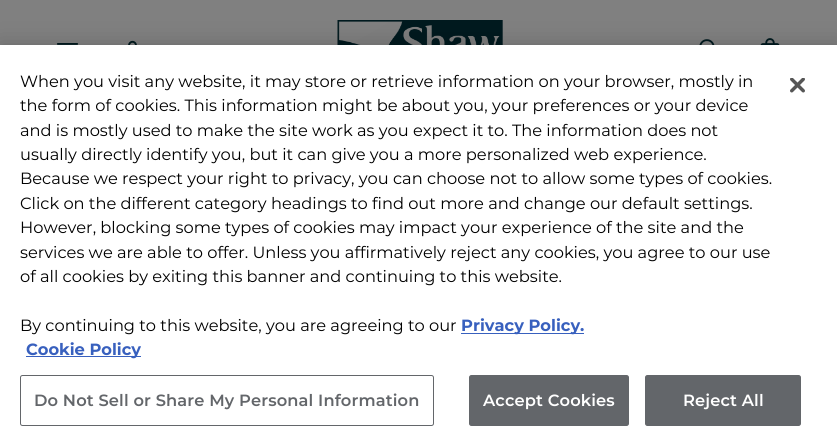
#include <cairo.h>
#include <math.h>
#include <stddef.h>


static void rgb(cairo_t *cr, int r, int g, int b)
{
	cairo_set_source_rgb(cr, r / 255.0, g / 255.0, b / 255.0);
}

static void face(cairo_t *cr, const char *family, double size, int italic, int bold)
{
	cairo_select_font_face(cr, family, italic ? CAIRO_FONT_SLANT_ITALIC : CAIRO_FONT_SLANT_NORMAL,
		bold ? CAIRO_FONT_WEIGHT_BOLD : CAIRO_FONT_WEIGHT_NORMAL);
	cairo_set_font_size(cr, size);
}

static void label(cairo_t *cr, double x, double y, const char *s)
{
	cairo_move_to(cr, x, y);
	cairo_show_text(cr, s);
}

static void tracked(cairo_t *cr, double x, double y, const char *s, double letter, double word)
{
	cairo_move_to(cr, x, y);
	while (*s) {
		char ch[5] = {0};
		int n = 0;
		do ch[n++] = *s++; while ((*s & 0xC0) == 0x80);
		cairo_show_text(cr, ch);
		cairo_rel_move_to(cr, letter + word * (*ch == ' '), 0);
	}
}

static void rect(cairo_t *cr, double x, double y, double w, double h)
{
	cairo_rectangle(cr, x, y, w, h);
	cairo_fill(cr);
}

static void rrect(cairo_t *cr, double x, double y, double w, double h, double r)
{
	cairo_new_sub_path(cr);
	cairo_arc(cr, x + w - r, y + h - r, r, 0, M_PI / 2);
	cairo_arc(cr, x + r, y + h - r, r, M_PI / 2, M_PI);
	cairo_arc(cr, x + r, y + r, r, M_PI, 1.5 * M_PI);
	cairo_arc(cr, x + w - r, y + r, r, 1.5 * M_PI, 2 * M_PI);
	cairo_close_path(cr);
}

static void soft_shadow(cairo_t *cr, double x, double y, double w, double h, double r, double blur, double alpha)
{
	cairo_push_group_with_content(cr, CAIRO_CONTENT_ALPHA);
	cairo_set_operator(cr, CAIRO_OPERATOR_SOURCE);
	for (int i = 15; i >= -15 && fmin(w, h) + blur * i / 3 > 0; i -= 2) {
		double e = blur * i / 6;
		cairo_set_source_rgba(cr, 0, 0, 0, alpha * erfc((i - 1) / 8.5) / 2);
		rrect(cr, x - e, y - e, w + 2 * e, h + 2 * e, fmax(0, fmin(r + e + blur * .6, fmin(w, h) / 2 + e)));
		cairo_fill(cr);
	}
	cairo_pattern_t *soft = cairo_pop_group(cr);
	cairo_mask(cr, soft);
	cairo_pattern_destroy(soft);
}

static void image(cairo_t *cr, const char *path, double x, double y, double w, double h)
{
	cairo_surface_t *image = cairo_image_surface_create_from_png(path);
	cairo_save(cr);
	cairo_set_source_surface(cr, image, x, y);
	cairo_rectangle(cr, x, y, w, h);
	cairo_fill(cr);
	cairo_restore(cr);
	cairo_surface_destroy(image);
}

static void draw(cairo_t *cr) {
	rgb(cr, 128, 128, 128);
	cairo_paint(cr);
	image(cr, "image0.png", 56, 43, 23, 2);
	image(cr, "image1.png", 128, 40, 9, 5);
	image(cr, "image2.png", 337, 20, 166, 25);
	image(cr, "image3.png", 699, 39, 16, 6);
	image(cr, "image4.png", 760, 38, 20, 7);
	rgb(cr, 0, 0, 0);
	soft_shadow(cr, 0, 45, 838, 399, 0, 11, 0.2);
	rgb(cr, 255, 255, 255);
	rect(cr, 0, 45, 837, 398);
	face(cr, "Montserrat", 16.25, 0, 0);
	rgb(cr, 0, 0, 0);
	label(cr, 20, 87, "When you visit any website, it may store or retrieve information on your browser, mostly in");
	label(cr, 20, 111, "the form of cookies. This information might be about you, your preferences or your device");
	label(cr, 20, 136, "and is mostly used to make the site work as you expect it to. The information does not");
	label(cr, 20, 160, "usually directly identify you, but it can give you a more personalized web experience.");
	label(cr, 20, 184, "Because we respect your right to privacy, you can choose not to allow some types of cookies.");
	label(cr, 20, 209, "Click on the different category headings to find out more and change our default settings.");
	label(cr, 20, 233, "However, blocking some types of cookies may impact your experience of the site and the");
	label(cr, 20, 258, "services we are able to offer. Unless you affirmatively reject any cookies, you agree to our use");
	label(cr, 20, 282, "of all cookies by exiting this banner and continuing to this website.");
	label(cr, 20, 331, "By continuing to this website, you are agreeing to our");
	rgb(cr, 56, 96, 190);
	rect(cr, 461, 333, 123, 1);
	face(cr, "Montserrat", 16.25, 0, 1);
	label(cr, 461, 331, "Privacy Policy.");
	rect(cr, 26, 356, 115, 1);
	label(cr, 26, 355, "Cookie Policy");
	rrect(cr, 20.5, 375.5, 413, 50, 2);
	rgb(cr, 99, 102, 106);
	cairo_set_line_width(cr, 1);
	cairo_stroke(cr);
	face(cr, "Montserrat SemiBold", 16.25, 0, 0);
	tracked(cr, 34, 406, "Do Not Sell or Share My Personal Information", 0.15, 0);
	rrect(cr, 469.5, 375.5, 159, 50, 2);
	cairo_fill_preserve(cr);
	cairo_stroke(cr);
	rgb(cr, 255, 255, 255);
	tracked(cr, 483, 406, "Accept Cookies", 0.15, 0);
	rgb(cr, 99, 102, 106);
	rrect(cr, 645.5, 375.5, 155, 50, 2);
	cairo_fill_preserve(cr);
	cairo_stroke(cr);
	rgb(cr, 255, 255, 255);
	tracked(cr, 683, 406, "Reject All", 0.15, 0);
	image(cr, "image5.png", 790, 78, 15, 15);
}

int main(void) {
	cairo_surface_t *surface = cairo_image_surface_create(CAIRO_FORMAT_RGB24, 837, 443);
	cairo_t *cr = cairo_create(surface);
	cairo_font_options_t *options = cairo_font_options_create();
	cairo_font_options_set_hint_metrics(options, CAIRO_HINT_METRICS_OFF);
	cairo_font_options_set_hint_style(options, CAIRO_HINT_STYLE_NONE);
	cairo_set_font_options(cr, options);
	cairo_set_miter_limit(cr, 4);
	draw(cr);
	cairo_surface_write_to_png(surface, "render.png");
	cairo_font_options_destroy(options);
	cairo_destroy(cr);
	cairo_surface_destroy(surface);
	return 0;
}
